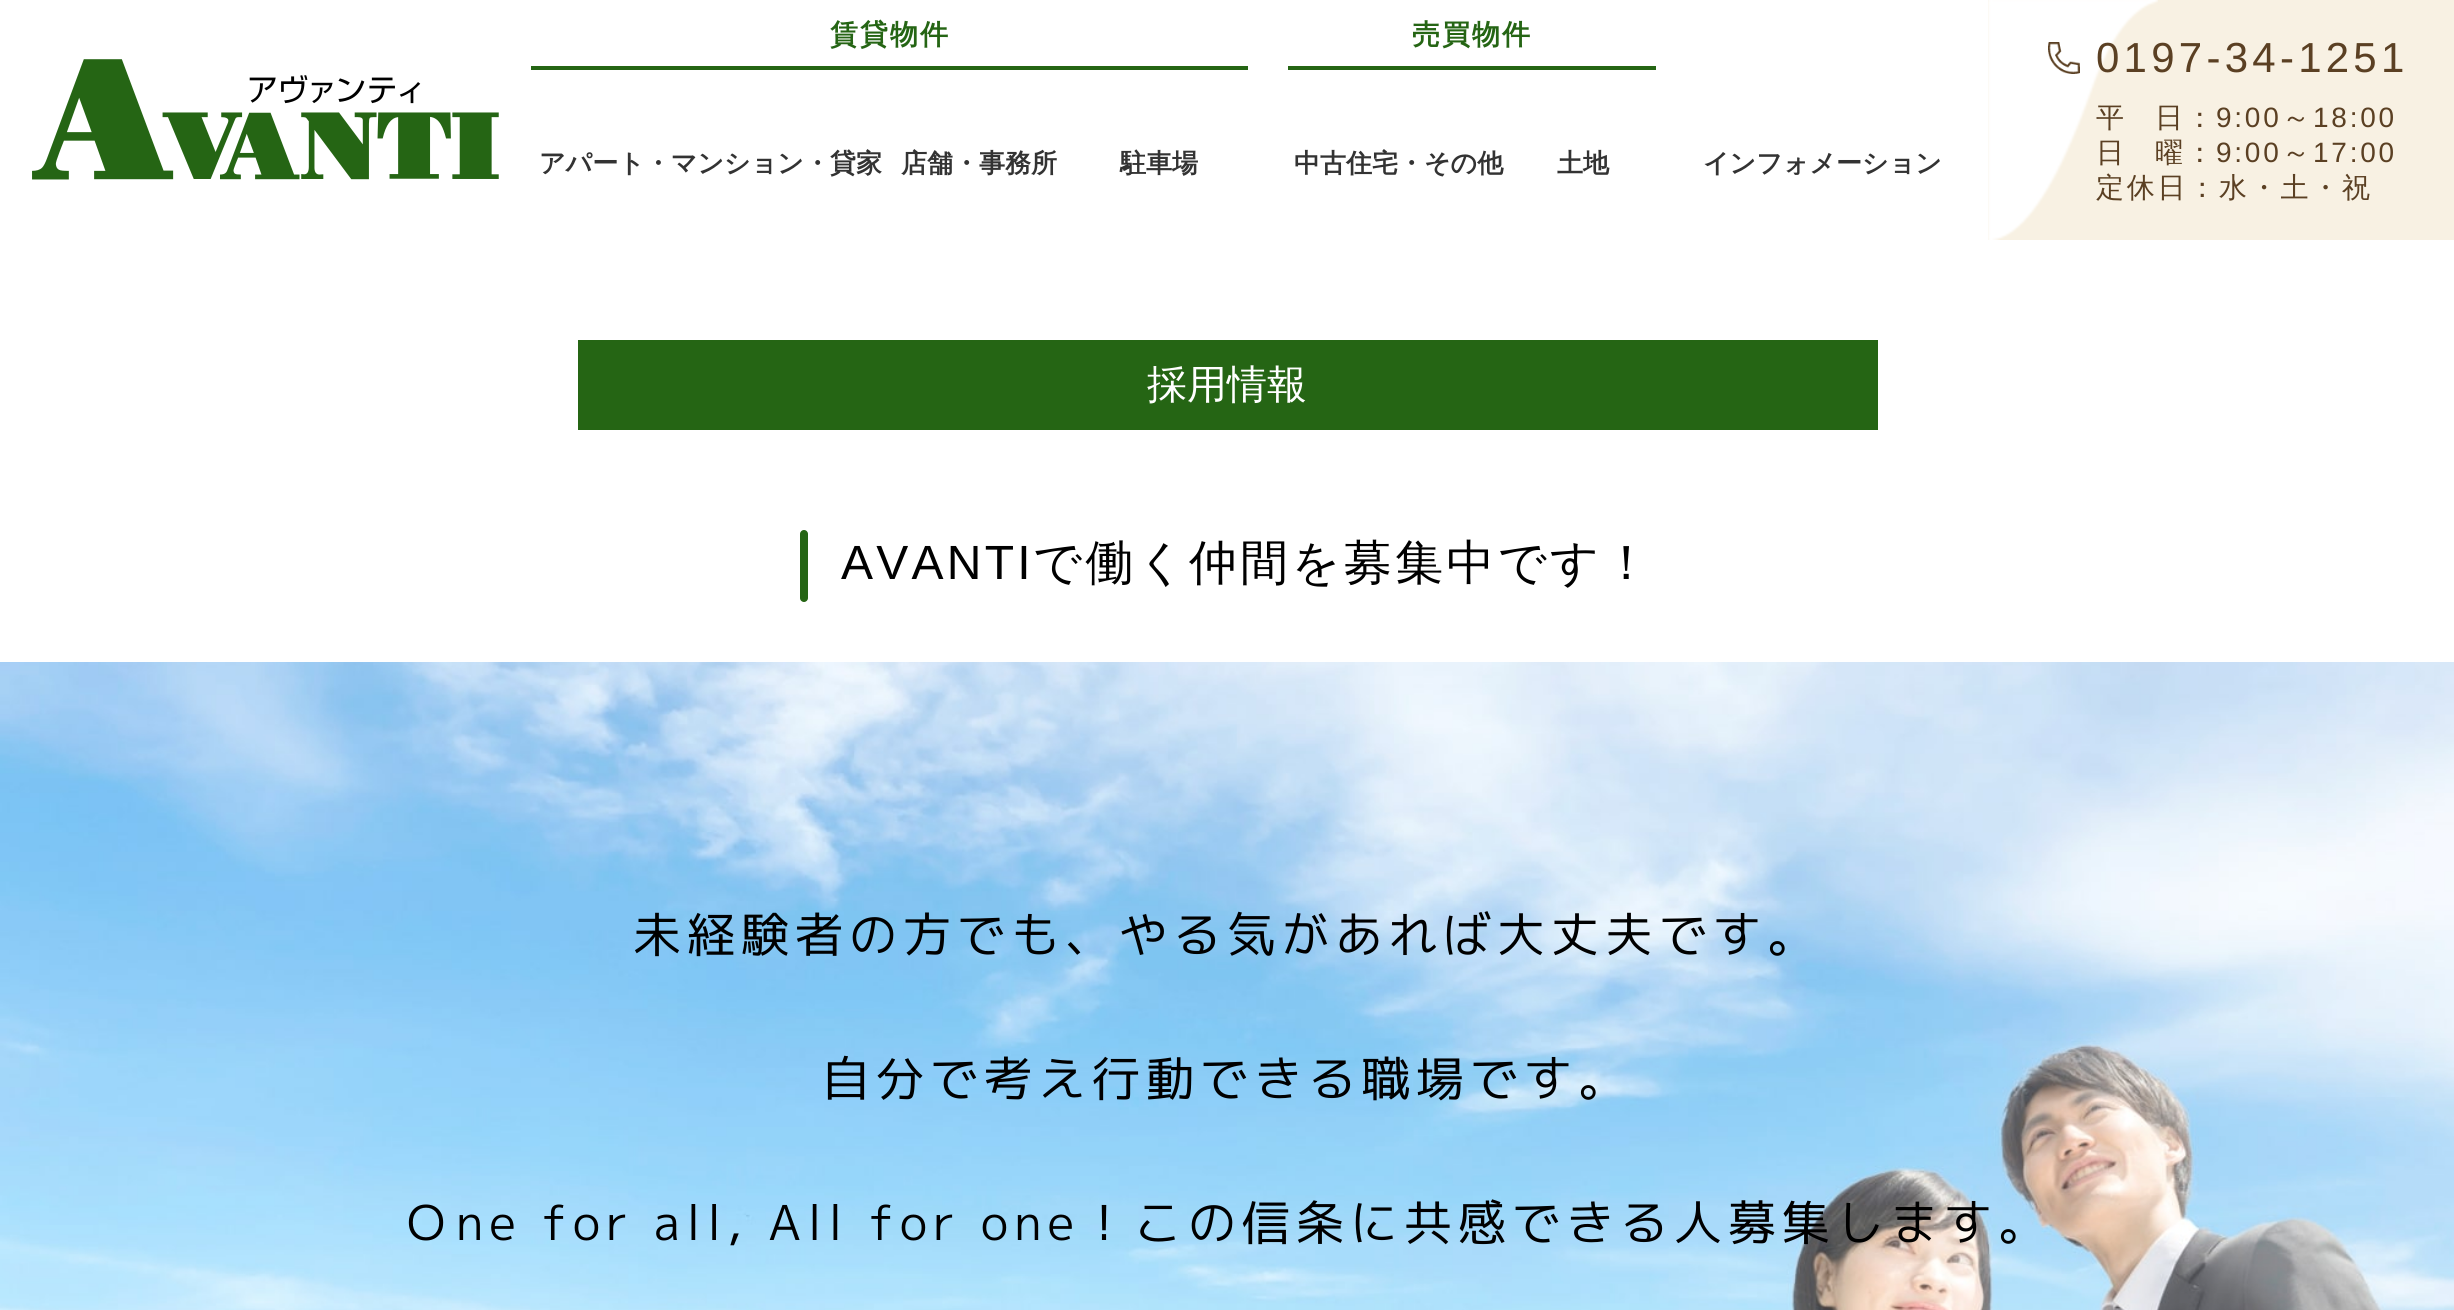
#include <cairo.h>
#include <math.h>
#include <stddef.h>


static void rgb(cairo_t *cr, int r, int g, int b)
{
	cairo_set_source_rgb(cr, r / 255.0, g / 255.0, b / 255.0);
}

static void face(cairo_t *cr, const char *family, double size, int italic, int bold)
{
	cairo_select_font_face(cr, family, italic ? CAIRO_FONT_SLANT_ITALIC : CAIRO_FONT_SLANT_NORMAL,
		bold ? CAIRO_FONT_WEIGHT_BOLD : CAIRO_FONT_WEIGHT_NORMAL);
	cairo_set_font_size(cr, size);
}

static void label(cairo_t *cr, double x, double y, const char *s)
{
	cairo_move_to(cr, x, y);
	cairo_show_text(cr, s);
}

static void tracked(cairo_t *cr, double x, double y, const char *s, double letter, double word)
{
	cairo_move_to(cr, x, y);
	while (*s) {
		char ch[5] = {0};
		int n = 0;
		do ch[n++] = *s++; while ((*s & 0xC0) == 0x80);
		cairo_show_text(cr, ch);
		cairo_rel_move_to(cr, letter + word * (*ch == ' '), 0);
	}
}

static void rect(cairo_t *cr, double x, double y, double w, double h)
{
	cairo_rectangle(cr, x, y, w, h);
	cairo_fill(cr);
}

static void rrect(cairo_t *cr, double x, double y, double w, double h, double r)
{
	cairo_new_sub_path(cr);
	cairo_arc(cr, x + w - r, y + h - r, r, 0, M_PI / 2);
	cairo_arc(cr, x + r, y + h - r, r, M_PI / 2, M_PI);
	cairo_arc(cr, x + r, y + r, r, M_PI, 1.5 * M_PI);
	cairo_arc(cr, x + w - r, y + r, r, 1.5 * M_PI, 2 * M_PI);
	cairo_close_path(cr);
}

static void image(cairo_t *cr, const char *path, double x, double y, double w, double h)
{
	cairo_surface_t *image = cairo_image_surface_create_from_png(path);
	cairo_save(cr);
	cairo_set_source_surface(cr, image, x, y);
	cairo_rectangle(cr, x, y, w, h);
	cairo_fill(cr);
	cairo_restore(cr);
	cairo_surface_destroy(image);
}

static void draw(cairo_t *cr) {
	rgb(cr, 255, 255, 255);
	cairo_paint(cr);
	image(cr, "image0.png", 32, 59, 467, 121);
	rgb(cr, 37, 101, 20);
	rect(cr, 531, 66, 717, 4);
	face(cr, "WenQuanYi Zen Hei", 28, 0, 1);
	tracked(cr, 830, 44, "賃貸物件", 2, 0);
	face(cr, "WenQuanYi Zen Hei", 26, 0, 1);
	rgb(cr, 51, 51, 51);
	label(cr, 539, 172, "アパート・マンション・貸家");
	label(cr, 901, 172, "店舗・事務所");
	label(cr, 1120, 172, "駐車場");
	rgb(cr, 37, 101, 20);
	rect(cr, 1288, 66, 368, 4);
	face(cr, "WenQuanYi Zen Hei", 28, 0, 1);
	tracked(cr, 1412, 44, "売買物件", 2, 0);
	face(cr, "WenQuanYi Zen Hei", 26, 0, 1);
	rgb(cr, 51, 51, 51);
	label(cr, 1294, 172, "中古住宅・その他");
	label(cr, 1557, 172, "土地");
	label(cr, 1703, 172, "インフォメーション");
	rgb(cr, 248, 241, 227);
	rect(cr, 1988, 0, 466, 240);
	image(cr, "image1.png", 1988, 0, 170, 240);
	image(cr, "image2.png", 2048, 42, 32, 32);
	face(cr, "Liberation Sans", 42, 0, 0);
	rgb(cr, 91, 64, 35);
	tracked(cr, 2096, 72, "0197-34-1251", 4.25, 0);
	face(cr, "WenQuanYi Zen Hei Medium", 28, 0, 0);
	tracked(cr, 2096, 127, "平", 31, 0);
	tracked(cr, 2155, 127, "日：", 2.75, 0);
	face(cr, "Liberation Sans", 28, 0, 0);
	tracked(cr, 2216, 127, "9:00", 2.75, 0);
	face(cr, "WenQuanYi Zen Hei Medium", 28, 0, 0);
	tracked(cr, 2282, 127, "～", 2.75, 0);
	face(cr, "Liberation Sans", 28, 0, 0);
	tracked(cr, 2313, 127, "18:00", 2.75, 0);
	face(cr, "WenQuanYi Zen Hei Medium", 28, 0, 0);
	tracked(cr, 2096, 162, "日", 31, 0);
	tracked(cr, 2155, 162, "曜：", 2.75, 0);
	face(cr, "Liberation Sans", 28, 0, 0);
	tracked(cr, 2216, 162, "9:00", 2.75, 0);
	face(cr, "WenQuanYi Zen Hei Medium", 28, 0, 0);
	tracked(cr, 2282, 162, "～", 2.75, 0);
	face(cr, "Liberation Sans", 28, 0, 0);
	tracked(cr, 2313, 162, "17:00", 2.75, 0);
	face(cr, "WenQuanYi Zen Hei Medium", 28, 0, 0);
	tracked(cr, 2096, 197, "定休日：水・土・祝", 2.75, 0);
	rgb(cr, 37, 101, 20);
	rect(cr, 578, 340, 1300, 90);
	face(cr, "WenQuanYi Zen Hei Medium", 40, 0, 0);
	rgb(cr, 255, 255, 255);
	label(cr, 1147, 398, "採用情報");
	rgb(cr, 37, 101, 20);
	rrect(cr, 800, 530, 8, 72, 4);
	cairo_fill(cr);
	face(cr, "Liberation Sans", 48, 0, 0);
	rgb(cr, 0, 0, 0);
	tracked(cr, 841, 579, "AVANTI", 3.25, 0);
	face(cr, "WenQuanYi Zen Hei Medium", 48, 0, 0);
	tracked(cr, 1033, 579, "で働く仲間を募集中です！", 3.25, 0);
	image(cr, "image3.png", 0, 662, 2454, 648);
	face(cr, "M PLUS 1p", 48, 0, 0);
	tracked(cr, 633, 952, "未経験者の方でも、やる気があれば大丈夫です。", 6, 0);
	tracked(cr, 822, 1096, "自分で考え行動できる職場です。", 6, 0);
	tracked(cr, 402, 1240, "Ｏne for all, All for one！この信条に共感できる人募集します。", 6, 0);
}

int main(void) {
	cairo_surface_t *surface = cairo_image_surface_create(CAIRO_FORMAT_RGB24, 2454, 1310);
	cairo_t *cr = cairo_create(surface);
	cairo_font_options_t *options = cairo_font_options_create();
	cairo_font_options_set_hint_metrics(options, CAIRO_HINT_METRICS_OFF);
	cairo_font_options_set_hint_style(options, CAIRO_HINT_STYLE_NONE);
	cairo_set_font_options(cr, options);
	cairo_set_miter_limit(cr, 4);
	draw(cr);
	cairo_surface_write_to_png(surface, "render.png");
	cairo_font_options_destroy(options);
	cairo_destroy(cr);
	cairo_surface_destroy(surface);
	return 0;
}
